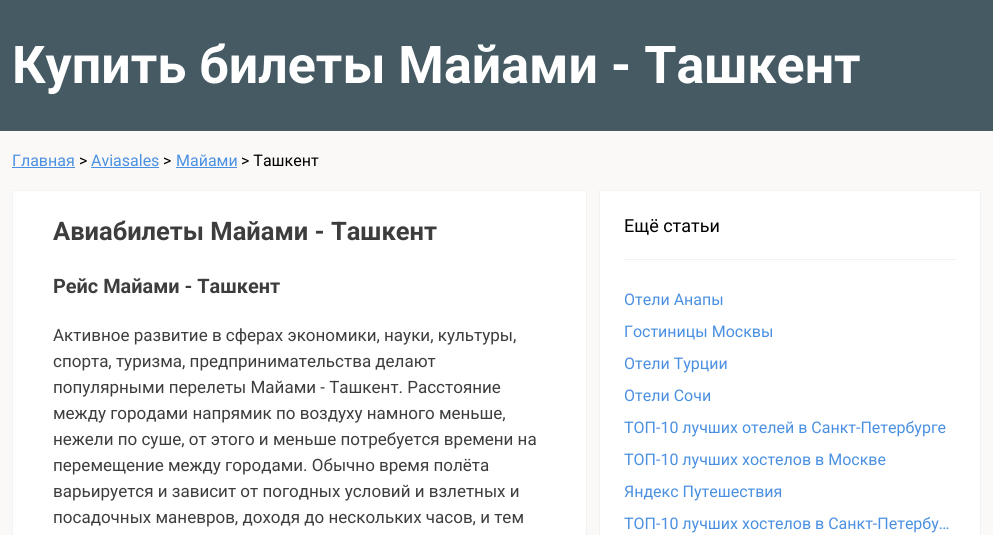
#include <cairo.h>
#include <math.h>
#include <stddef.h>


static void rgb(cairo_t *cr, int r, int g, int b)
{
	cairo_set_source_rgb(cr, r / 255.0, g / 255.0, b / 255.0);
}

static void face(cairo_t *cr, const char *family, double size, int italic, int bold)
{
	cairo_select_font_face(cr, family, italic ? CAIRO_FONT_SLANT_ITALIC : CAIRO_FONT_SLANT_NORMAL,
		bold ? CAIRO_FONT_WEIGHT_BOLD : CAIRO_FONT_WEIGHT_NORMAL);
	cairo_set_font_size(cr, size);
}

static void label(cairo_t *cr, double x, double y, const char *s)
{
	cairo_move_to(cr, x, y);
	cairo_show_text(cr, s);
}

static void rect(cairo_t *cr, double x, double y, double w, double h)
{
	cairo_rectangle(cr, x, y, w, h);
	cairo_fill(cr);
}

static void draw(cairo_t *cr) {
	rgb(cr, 251, 249, 247);
	cairo_paint(cr);
	rgb(cr, 69, 90, 99);
	rect(cr, 0, 0, 993, 131);
	face(cr, "Roboto", 52, 0, 1);
	rgb(cr, 255, 255, 255);
	label(cr, 12, 83, "Купить билеты Майами - Ташкент");
	face(cr, "Roboto", 16, 0, 0);
	rgb(cr, 74, 144, 226);
	label(cr, 12, 166, "Главная");
	rect(cr, 12, 167, 63, 1);
	rgb(cr, 0, 0, 0);
	label(cr, 79, 166, ">");
	rgb(cr, 74, 144, 226);
	label(cr, 91, 166, "Aviasales");
	rect(cr, 91, 167, 68, 1);
	rgb(cr, 0, 0, 0);
	label(cr, 163, 166, ">");
	rgb(cr, 74, 144, 226);
	label(cr, 176, 166, "Майами");
	rect(cr, 176, 167, 61, 1);
	rgb(cr, 0, 0, 0);
	label(cr, 241, 166, "> Ташкент");
	rgb(cr, 255, 255, 255);
	cairo_rectangle(cr, 12.5, 190.5, 574, 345);
	cairo_fill_preserve(cr);
	rgb(cr, 242, 242, 242);
	cairo_set_line_width(cr, 1);
	cairo_stroke(cr);
	face(cr, "Roboto", 25.5, 0, 1);
	rgb(cr, 61, 61, 61);
	label(cr, 53, 240, "Авиабилеты Майами - Ташкент");
	face(cr, "Roboto", 19.9, 0, 1);
	label(cr, 53, 293, "Рейс Майами - Ташкент");
	face(cr, "Roboto", 17, 0, 0);
	label(cr, 53, 341, "Активное развитие в сферах экономики, науки, культуры,");
	label(cr, 53, 367, "спорта, туризма, предпринимательства делают");
	label(cr, 53, 393, "популярными перелеты Майами - Ташкент. Расстояние");
	label(cr, 53, 419, "между городами напрямик по воздуху намного меньше,");
	label(cr, 53, 445, "нежели по суше, от этого и меньше потребуется времени на");
	label(cr, 53, 471, "перемещение между городами. Обычно время полёта");
	label(cr, 53, 497, "варьируется и зависит от погодных условий и взлетных и");
	label(cr, 53, 523, "посадочных маневров, доходя до нескольких часов, и тем");
	rgb(cr, 255, 255, 255);
	cairo_rectangle(cr, 599.5, 190.5, 381, 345);
	cairo_fill_preserve(cr);
	rgb(cr, 242, 242, 242);
	cairo_stroke(cr);
	rect(cr, 624, 259, 332, 1);
	face(cr, "Roboto", 18, 0, 0);
	rgb(cr, 0, 0, 0);
	label(cr, 624, 232, "Ещё статьи");
	face(cr, "Roboto", 16, 0, 0);
	rgb(cr, 74, 144, 226);
	label(cr, 624, 305, "Отели Анапы");
	label(cr, 624, 337, "Гостиницы Москвы");
	label(cr, 624, 369, "Отели Турции");
	label(cr, 624, 401, "Отели Сочи");
	label(cr, 624, 433, "ТОП-10 лучших отелей в Санкт-Петербурге");
	label(cr, 624, 465, "ТОП-10 лучших хостелов в Москве");
	label(cr, 624, 497, "Яндекс Путешествия");
	label(cr, 624, 529, "ТОП-10 лучших хостелов в Санкт-Петербу…");
}

int main(void) {
	cairo_surface_t *surface = cairo_image_surface_create(CAIRO_FORMAT_RGB24, 993, 535);
	cairo_t *cr = cairo_create(surface);
	cairo_font_options_t *options = cairo_font_options_create();
	cairo_font_options_set_hint_metrics(options, CAIRO_HINT_METRICS_OFF);
	cairo_font_options_set_hint_style(options, CAIRO_HINT_STYLE_NONE);
	cairo_set_font_options(cr, options);
	cairo_set_miter_limit(cr, 4);
	draw(cr);
	cairo_surface_write_to_png(surface, "render.png");
	cairo_font_options_destroy(options);
	cairo_destroy(cr);
	cairo_surface_destroy(surface);
	return 0;
}
